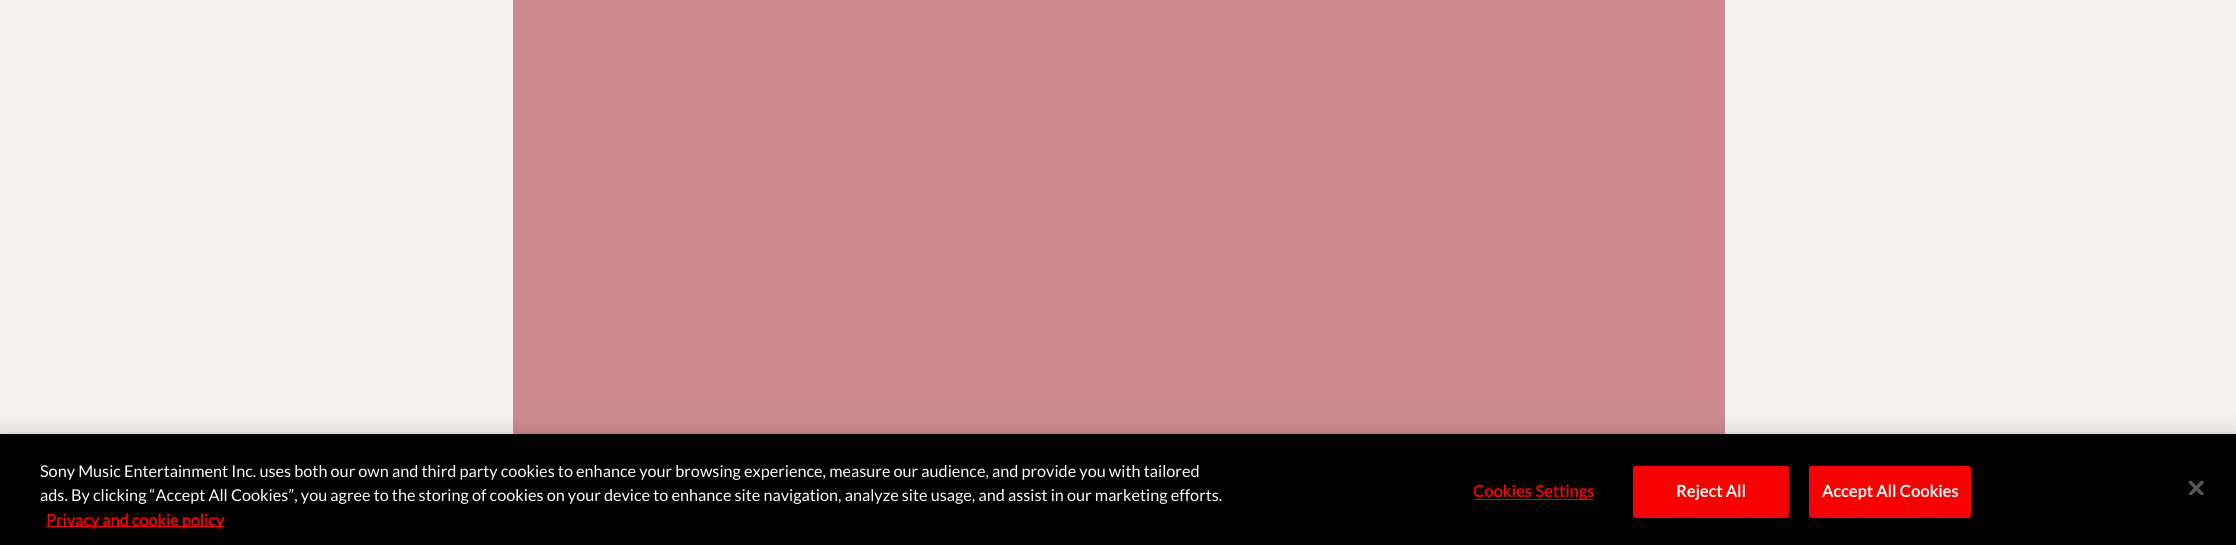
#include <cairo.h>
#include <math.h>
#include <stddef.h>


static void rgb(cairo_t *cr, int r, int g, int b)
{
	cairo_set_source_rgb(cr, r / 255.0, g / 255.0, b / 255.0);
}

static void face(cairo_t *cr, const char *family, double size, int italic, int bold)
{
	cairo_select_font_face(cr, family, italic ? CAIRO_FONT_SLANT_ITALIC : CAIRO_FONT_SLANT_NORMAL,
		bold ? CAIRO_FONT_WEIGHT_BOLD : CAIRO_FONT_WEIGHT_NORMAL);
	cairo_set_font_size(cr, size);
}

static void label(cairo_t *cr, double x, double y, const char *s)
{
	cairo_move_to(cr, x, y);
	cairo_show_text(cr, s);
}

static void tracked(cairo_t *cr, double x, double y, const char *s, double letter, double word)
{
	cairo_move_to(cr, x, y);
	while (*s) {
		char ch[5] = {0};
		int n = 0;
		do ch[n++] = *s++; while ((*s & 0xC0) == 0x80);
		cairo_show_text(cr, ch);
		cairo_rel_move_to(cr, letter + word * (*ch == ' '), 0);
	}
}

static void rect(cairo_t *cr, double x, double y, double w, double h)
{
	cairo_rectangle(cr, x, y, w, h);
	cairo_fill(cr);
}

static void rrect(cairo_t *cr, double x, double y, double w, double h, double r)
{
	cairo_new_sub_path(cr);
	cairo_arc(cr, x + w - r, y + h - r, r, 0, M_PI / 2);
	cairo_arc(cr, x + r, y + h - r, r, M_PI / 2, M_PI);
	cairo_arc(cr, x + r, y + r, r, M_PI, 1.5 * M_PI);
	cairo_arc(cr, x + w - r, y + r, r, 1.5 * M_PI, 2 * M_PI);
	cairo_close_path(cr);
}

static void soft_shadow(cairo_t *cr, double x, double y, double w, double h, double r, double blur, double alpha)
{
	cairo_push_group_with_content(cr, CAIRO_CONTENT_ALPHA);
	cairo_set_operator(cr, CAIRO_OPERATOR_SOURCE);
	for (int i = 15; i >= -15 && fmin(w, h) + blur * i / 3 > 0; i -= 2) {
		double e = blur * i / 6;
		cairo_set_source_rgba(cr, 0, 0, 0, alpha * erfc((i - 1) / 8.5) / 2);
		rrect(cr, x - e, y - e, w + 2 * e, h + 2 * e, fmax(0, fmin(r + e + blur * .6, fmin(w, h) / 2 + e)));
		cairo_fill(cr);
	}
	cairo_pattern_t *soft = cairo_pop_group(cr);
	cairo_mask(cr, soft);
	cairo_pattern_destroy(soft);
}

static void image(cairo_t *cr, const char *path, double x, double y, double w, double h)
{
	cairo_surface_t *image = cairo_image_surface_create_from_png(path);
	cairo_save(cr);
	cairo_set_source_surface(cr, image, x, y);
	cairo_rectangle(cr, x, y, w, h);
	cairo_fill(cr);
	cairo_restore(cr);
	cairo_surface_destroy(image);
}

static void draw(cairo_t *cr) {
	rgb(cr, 244, 243, 241);
	cairo_paint(cr);
	rgb(cr, 204, 138, 144);
	rect(cr, 513, 0, 1212, 434);
	rgb(cr, 0, 0, 0);
	soft_shadow(cr, 0, 434, 2236, 111, 0, 11, 0.2);
	rgb(cr, 0, 0, 0);
	rect(cr, 0, 434, 2236, 111);
	face(cr, "Lato", 16.25, 0, 0);
	rgb(cr, 253, 252, 252);
	label(cr, 40, 477, "Sony Music Entertainment Inc. uses both our own and third party cookies to enhance your browsing experience, measure our audience, and provide you with tailored");
	label(cr, 40, 501, "ads. By clicking “Accept All Cookies”, you agree to the storing of cookies on your device to enhance site navigation, analyze site usage, and assist in our marketing efforts.");
	rgb(cr, 249, 0, 0);
	rect(cr, 46, 526, 178, 1);
	face(cr, "Lato", 16.25, 0, 1);
	label(cr, 46, 526, "Privacy and cookie policy");
	rect(cr, 1474, 499, 120, 1);
	tracked(cr, 1473, 497, "Cookies Settings", 0.2, 0);
	rrect(cr, 1633.5, 466.5, 155, 51, 2);
	cairo_fill_preserve(cr);
	cairo_set_line_width(cr, 1);
	cairo_stroke(cr);
	rgb(cr, 253, 252, 252);
	tracked(cr, 1676, 497, "Reject All", 0.2, 0);
	rgb(cr, 249, 0, 0);
	rrect(cr, 1809.5, 466.5, 161, 51, 2);
	cairo_fill_preserve(cr);
	cairo_stroke(cr);
	rgb(cr, 253, 252, 252);
	tracked(cr, 1822, 497, "Accept All Cookies", 0.2, 0);
	image(cr, "image0.png", 2189, 480, 15, 15);
}

int main(void) {
	cairo_surface_t *surface = cairo_image_surface_create(CAIRO_FORMAT_RGB24, 2236, 545);
	cairo_t *cr = cairo_create(surface);
	cairo_font_options_t *options = cairo_font_options_create();
	cairo_font_options_set_hint_metrics(options, CAIRO_HINT_METRICS_OFF);
	cairo_font_options_set_hint_style(options, CAIRO_HINT_STYLE_NONE);
	cairo_set_font_options(cr, options);
	cairo_set_miter_limit(cr, 4);
	draw(cr);
	cairo_surface_write_to_png(surface, "render.png");
	cairo_font_options_destroy(options);
	cairo_destroy(cr);
	cairo_surface_destroy(surface);
	return 0;
}
